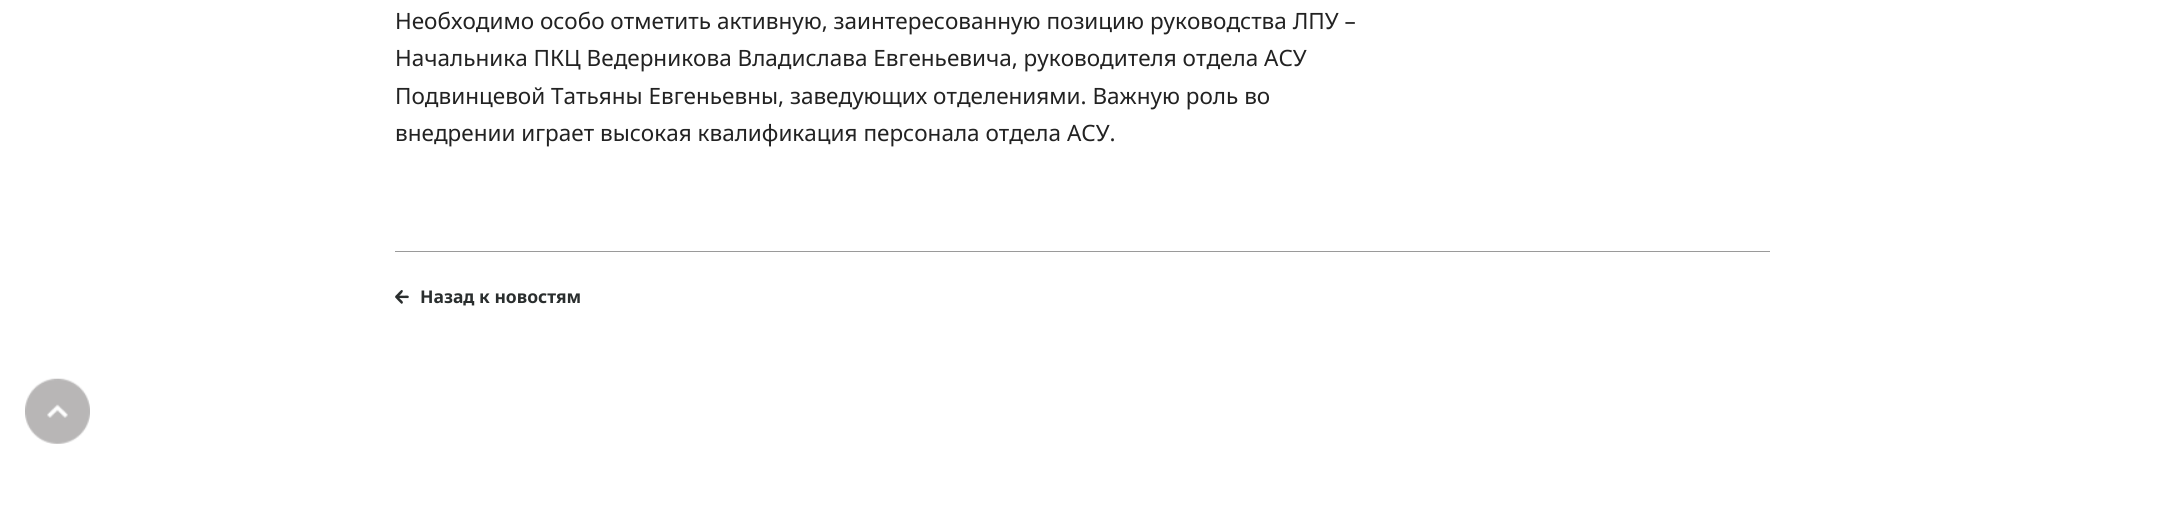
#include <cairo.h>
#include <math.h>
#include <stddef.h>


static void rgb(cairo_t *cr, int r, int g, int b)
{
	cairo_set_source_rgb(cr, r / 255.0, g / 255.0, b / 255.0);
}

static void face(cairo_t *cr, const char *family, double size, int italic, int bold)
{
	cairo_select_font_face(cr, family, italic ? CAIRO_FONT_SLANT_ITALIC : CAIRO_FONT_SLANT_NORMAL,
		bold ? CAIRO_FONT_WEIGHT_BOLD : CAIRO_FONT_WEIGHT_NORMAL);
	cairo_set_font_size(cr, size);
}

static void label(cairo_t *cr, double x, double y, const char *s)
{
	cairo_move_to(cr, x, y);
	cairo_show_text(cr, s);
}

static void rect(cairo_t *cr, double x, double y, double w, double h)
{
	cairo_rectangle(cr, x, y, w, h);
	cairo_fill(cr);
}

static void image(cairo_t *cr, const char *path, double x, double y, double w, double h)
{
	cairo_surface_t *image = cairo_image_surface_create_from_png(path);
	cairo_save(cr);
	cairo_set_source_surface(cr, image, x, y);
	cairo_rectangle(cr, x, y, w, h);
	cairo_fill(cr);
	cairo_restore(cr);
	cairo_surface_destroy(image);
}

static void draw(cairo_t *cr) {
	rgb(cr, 255, 255, 255);
	cairo_paint(cr);
	face(cr, "Noto Sans", 22.5, 0, 0);
	rgb(cr, 34, 34, 34);
	label(cr, 395, 29, "Необходимо особо отметить активную, заинтересованную позицию руководства ЛПУ –");
	label(cr, 395, 66, "Начальника ПКЦ Ведерникова Владислава Евгеньевича, руководителя отдела АСУ");
	label(cr, 395, 104, "Подвинцевой Татьяны Евгеньевны, заведующих отделениями. Важную роль во");
	label(cr, 395, 141, "внедрении играет высокая квалификация персонала отдела АСУ.");
	rgb(cr, 154, 154, 154);
	rect(cr, 395, 251, 1375, 1);
	image(cr, "image0.png", 395, 290, 14, 14);
	face(cr, "Noto Sans", 17.5, 0, 1);
	rgb(cr, 42, 46, 46);
	label(cr, 420, 303, "Назад к новостям");
	image(cr, "image1.png", 25, 378, 65, 66);
}

int main(void) {
	cairo_surface_t *surface = cairo_image_surface_create(CAIRO_FORMAT_RGB24, 2165, 506);
	cairo_t *cr = cairo_create(surface);
	cairo_font_options_t *options = cairo_font_options_create();
	cairo_font_options_set_hint_metrics(options, CAIRO_HINT_METRICS_OFF);
	cairo_font_options_set_hint_style(options, CAIRO_HINT_STYLE_NONE);
	cairo_set_font_options(cr, options);
	cairo_set_miter_limit(cr, 4);
	draw(cr);
	cairo_surface_write_to_png(surface, "render.png");
	cairo_font_options_destroy(options);
	cairo_destroy(cr);
	cairo_surface_destroy(surface);
	return 0;
}
